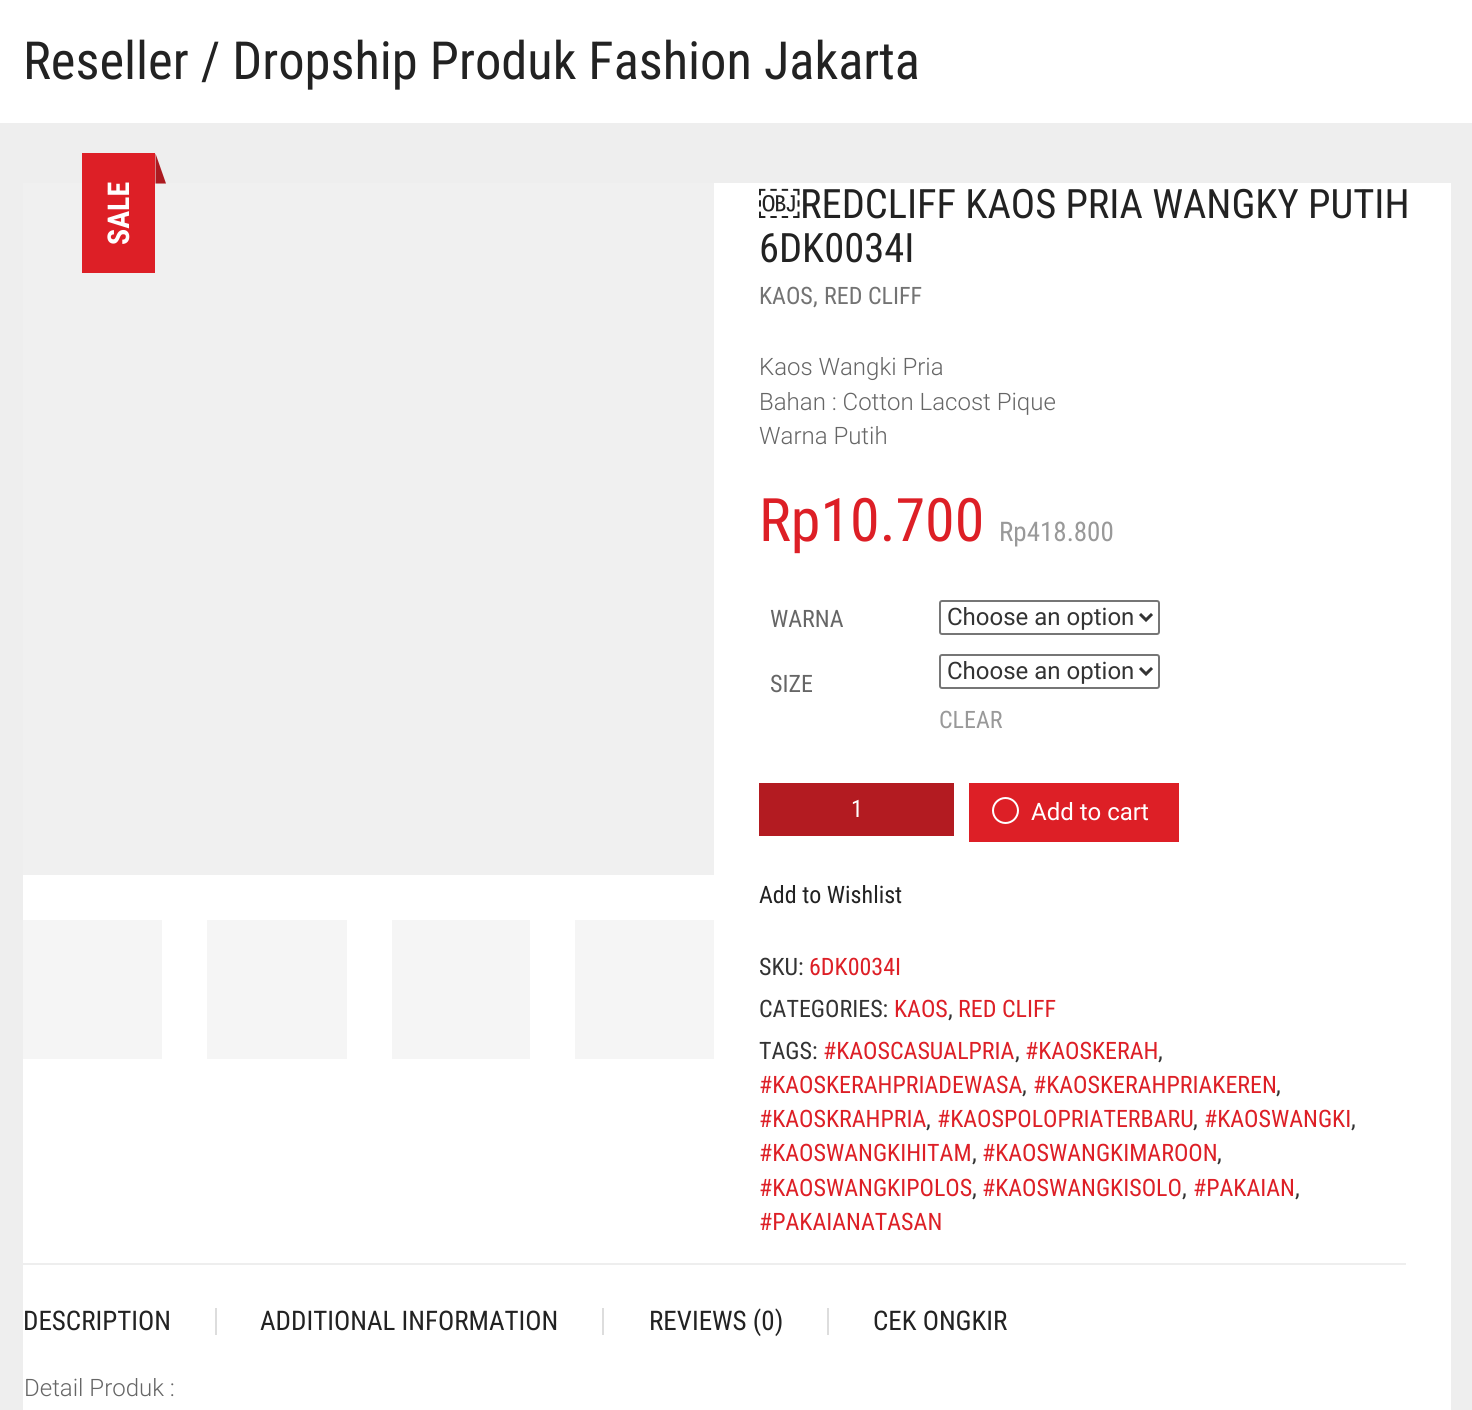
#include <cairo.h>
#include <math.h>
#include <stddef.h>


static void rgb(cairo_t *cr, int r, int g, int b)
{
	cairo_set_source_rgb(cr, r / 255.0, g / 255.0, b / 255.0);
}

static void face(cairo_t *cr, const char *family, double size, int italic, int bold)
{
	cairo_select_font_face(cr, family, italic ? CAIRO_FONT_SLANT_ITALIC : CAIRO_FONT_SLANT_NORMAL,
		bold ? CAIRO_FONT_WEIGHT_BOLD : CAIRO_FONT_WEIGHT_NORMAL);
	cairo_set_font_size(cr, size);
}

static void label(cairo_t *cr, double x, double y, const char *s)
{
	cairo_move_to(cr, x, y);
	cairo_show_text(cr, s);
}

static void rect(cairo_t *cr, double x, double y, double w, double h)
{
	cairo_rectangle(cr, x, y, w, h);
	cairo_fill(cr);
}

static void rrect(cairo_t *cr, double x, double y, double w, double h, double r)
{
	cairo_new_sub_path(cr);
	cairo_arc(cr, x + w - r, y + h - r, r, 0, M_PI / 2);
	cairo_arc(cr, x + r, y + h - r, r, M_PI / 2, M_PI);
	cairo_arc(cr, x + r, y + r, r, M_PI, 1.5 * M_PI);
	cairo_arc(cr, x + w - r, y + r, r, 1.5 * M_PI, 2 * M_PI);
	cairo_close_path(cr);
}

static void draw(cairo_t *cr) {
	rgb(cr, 238, 238, 238);
	cairo_paint(cr);
	rgb(cr, 255, 255, 255);
	rect(cr, 0, 0, 1472, 123);
	face(cr, "Roboto Condensed", 52.5, 0, 0);
	rgb(cr, 34, 34, 34);
	label(cr, 23, 79, "Reseller / Dropship Produk Fashion Jakarta");
	rgb(cr, 255, 255, 255);
	rect(cr, 23, 183, 1428, 1227);
	rgb(cr, 240, 240, 240);
	rect(cr, 23, 183, 691, 692);
	rgb(cr, 221, 31, 38);
	rect(cr, 82, 153, 73, 120);
	rgb(cr, 172, 26, 32);
	cairo_new_path(cr);
	cairo_move_to(cr, 155.5, 183.5);
	cairo_line_to(cr, 155.5, 153.5);
	cairo_line_to(cr, 166, 183.5);
	cairo_close_path(cr);
	cairo_fill(cr);
	face(cr, "Roboto Condensed", 30, 0, 1);
	rgb(cr, 255, 255, 255);
	cairo_save(cr);
	cairo_translate(cr, 129, 245);
	cairo_rotate(cr, -90 * M_PI / 180);
	label(cr, 0, 0, "SALE");
	cairo_restore(cr);
	rgb(cr, 245, 245, 245);
	rect(cr, 23, 920, 139, 139);
	rect(cr, 207, 920, 140, 139);
	rect(cr, 392, 920, 138, 139);
	rect(cr, 575, 920, 139, 139);
	face(cr, "Liberation Sans", 40.5, 0, 0);
	rgb(cr, 34, 34, 34);
	label(cr, 759, 218, "￼");
	face(cr, "Roboto Condensed", 40.5, 0, 0);
	label(cr, 800, 218, "REDCLIFF KAOS PRIA WANGKY PUTIH");
	label(cr, 759, 262, "6DK0034I");
	face(cr, "Roboto Condensed", 24, 0, 0);
	rgb(cr, 115, 115, 115);
	label(cr, 759, 304, "KAOS");
	face(cr, "Roboto", 24, 0, 0);
	label(cr, 813, 304, ",");
	face(cr, "Roboto Condensed", 24, 0, 0);
	label(cr, 824, 304, "RED CLIFF");
	face(cr, "Roboto Light", 24, 0, 0);
	rgb(cr, 102, 102, 102);
	label(cr, 759, 375, "Kaos Wangki Pria");
	label(cr, 759, 410, "Bahan : Cotton Lacost Pique");
	label(cr, 759, 444, "Warna Putih");
	face(cr, "Roboto Condensed", 60, 0, 0);
	rgb(cr, 221, 31, 38);
	label(cr, 759, 541, "Rp10.700");
	face(cr, "Roboto Condensed", 27, 0, 0);
	rgb(cr, 153, 153, 153);
	label(cr, 999, 541, "Rp418.800");
	face(cr, "Roboto Condensed", 24, 0, 0);
	rgb(cr, 102, 102, 102);
	label(cr, 770, 627, "WARNA");
	rrect(cr, 940, 601, 219, 33, 2);
	rgb(cr, 118, 118, 118);
	cairo_stroke(cr);
	cairo_new_path(cr);
	cairo_move_to(cr, 1140, 614);
	cairo_line_to(cr, 1146, 620);
	cairo_line_to(cr, 1152, 614);
	rgb(cr, 51, 51, 51);
	cairo_set_line_width(cr, 3);
	cairo_stroke(cr);
	face(cr, "Roboto", 24, 0, 0);
	label(cr, 947, 625, "Choose an option");
	face(cr, "Roboto Condensed", 24, 0, 0);
	rgb(cr, 102, 102, 102);
	label(cr, 770, 692, "SIZE");
	rrect(cr, 940, 655, 219, 33, 2);
	rgb(cr, 118, 118, 118);
	cairo_set_line_width(cr, 2);
	cairo_stroke(cr);
	cairo_new_path(cr);
	cairo_move_to(cr, 1140, 668);
	cairo_line_to(cr, 1146, 674);
	cairo_line_to(cr, 1152, 668);
	rgb(cr, 51, 51, 51);
	cairo_set_line_width(cr, 3);
	cairo_stroke(cr);
	face(cr, "Roboto", 24, 0, 0);
	label(cr, 947, 679, "Choose an option");
	face(cr, "Roboto Condensed", 24, 0, 0);
	rgb(cr, 153, 153, 153);
	label(cr, 939, 728, "CLEAR");
	rgb(cr, 179, 27, 33);
	rect(cr, 759, 783, 195, 53);
	rgb(cr, 255, 255, 255);
	label(cr, 851, 817, "1");
	rgb(cr, 221, 31, 38);
	rect(cr, 969, 783, 210, 59);
	cairo_new_path(cr);
	cairo_arc(cr, 1005.5, 810.5, 12.5, 0, 2 * M_PI);
	rgb(cr, 255, 255, 255);
	cairo_set_line_width(cr, 2);
	cairo_stroke(cr);
	face(cr, "Roboto", 24, 0, 0);
	label(cr, 1031, 820, "Add to cart");
	face(cr, "Roboto Condensed", 24, 0, 0);
	rgb(cr, 34, 34, 34);
	label(cr, 759, 903, "Add to Wishlist");
	rgb(cr, 51, 51, 51);
	label(cr, 759, 975, "SKU:");
	rgb(cr, 221, 31, 38);
	label(cr, 809, 975, "6DK0034I");
	rgb(cr, 51, 51, 51);
	label(cr, 759, 1017, "CATEGORIES:");
	rgb(cr, 221, 31, 38);
	label(cr, 894, 1017, "KAOS");
	rgb(cr, 51, 51, 51);
	label(cr, 948, 1017, ",");
	rgb(cr, 221, 31, 38);
	label(cr, 958, 1017, "RED CLIFF");
	rgb(cr, 51, 51, 51);
	label(cr, 759, 1059, "TAGS:");
	rgb(cr, 221, 31, 38);
	label(cr, 823, 1059, "#KAOSCASUALPRIA");
	rgb(cr, 51, 51, 51);
	label(cr, 1015, 1059, ",");
	rgb(cr, 221, 31, 38);
	label(cr, 1025, 1059, "#KAOSKERAH");
	rgb(cr, 51, 51, 51);
	label(cr, 1158, 1059, ",");
	rgb(cr, 221, 31, 38);
	label(cr, 759, 1093, "#KAOSKERAHPRIADEWASA");
	rgb(cr, 51, 51, 51);
	label(cr, 1022, 1093, ",");
	rgb(cr, 221, 31, 38);
	label(cr, 1033, 1093, "#KAOSKERAHPRIAKEREN");
	rgb(cr, 51, 51, 51);
	label(cr, 1276, 1093, ",");
	rgb(cr, 221, 31, 38);
	label(cr, 759, 1127, "#KAOSKRAHPRIA");
	rgb(cr, 51, 51, 51);
	label(cr, 926, 1127, ",");
	rgb(cr, 221, 31, 38);
	label(cr, 937, 1127, "#KAOSPOLOPRIATERBARU");
	rgb(cr, 51, 51, 51);
	label(cr, 1193, 1127, ",");
	rgb(cr, 221, 31, 38);
	label(cr, 1204, 1127, "#KAOSWANGKI");
	rgb(cr, 51, 51, 51);
	label(cr, 1351, 1127, ",");
	rgb(cr, 221, 31, 38);
	label(cr, 759, 1161, "#KAOSWANGKIHITAM");
	rgb(cr, 51, 51, 51);
	label(cr, 972, 1161, ",");
	rgb(cr, 221, 31, 38);
	label(cr, 982, 1161, "#KAOSWANGKIMAROON");
	rgb(cr, 51, 51, 51);
	label(cr, 1217, 1161, ",");
	rgb(cr, 221, 31, 38);
	label(cr, 759, 1196, "#KAOSWANGKIPOLOS");
	rgb(cr, 51, 51, 51);
	label(cr, 972, 1196, ",");
	rgb(cr, 221, 31, 38);
	label(cr, 982, 1196, "#KAOSWANGKISOLO");
	rgb(cr, 51, 51, 51);
	label(cr, 1182, 1196, ",");
	rgb(cr, 221, 31, 38);
	label(cr, 1193, 1196, "#PAKAIAN");
	rgb(cr, 51, 51, 51);
	label(cr, 1295, 1196, ",");
	rgb(cr, 221, 31, 38);
	label(cr, 759, 1230, "#PAKAIANATASAN");
	rgb(cr, 238, 238, 238);
	rect(cr, 23, 1263, 1383, 2);
	face(cr, "Roboto Condensed", 27, 0, 0);
	rgb(cr, 34, 34, 34);
	label(cr, 23, 1330, "DESCRIPTION");
	rgb(cr, 221, 221, 221);
	rect(cr, 215, 1308, 2, 27);
	rgb(cr, 34, 34, 34);
	label(cr, 260, 1330, "ADDITIONAL INFORMATION");
	rgb(cr, 221, 221, 221);
	rect(cr, 602, 1308, 2, 27);
	rgb(cr, 34, 34, 34);
	label(cr, 649, 1330, "REVIEWS (0)");
	rgb(cr, 221, 221, 221);
	rect(cr, 827, 1308, 2, 27);
	rgb(cr, 34, 34, 34);
	label(cr, 873, 1330, "CEK ONGKIR");
	face(cr, "Roboto Light", 24, 0, 0);
	rgb(cr, 102, 102, 102);
	label(cr, 24, 1396, "Detail Produk :");
}

int main(void) {
	cairo_surface_t *surface = cairo_image_surface_create(CAIRO_FORMAT_RGB24, 1472, 1410);
	cairo_t *cr = cairo_create(surface);
	cairo_font_options_t *options = cairo_font_options_create();
	cairo_font_options_set_hint_metrics(options, CAIRO_HINT_METRICS_OFF);
	cairo_font_options_set_hint_style(options, CAIRO_HINT_STYLE_NONE);
	cairo_set_font_options(cr, options);
	cairo_set_miter_limit(cr, 4);
	draw(cr);
	cairo_surface_write_to_png(surface, "render.png");
	cairo_font_options_destroy(options);
	cairo_destroy(cr);
	cairo_surface_destroy(surface);
	return 0;
}
